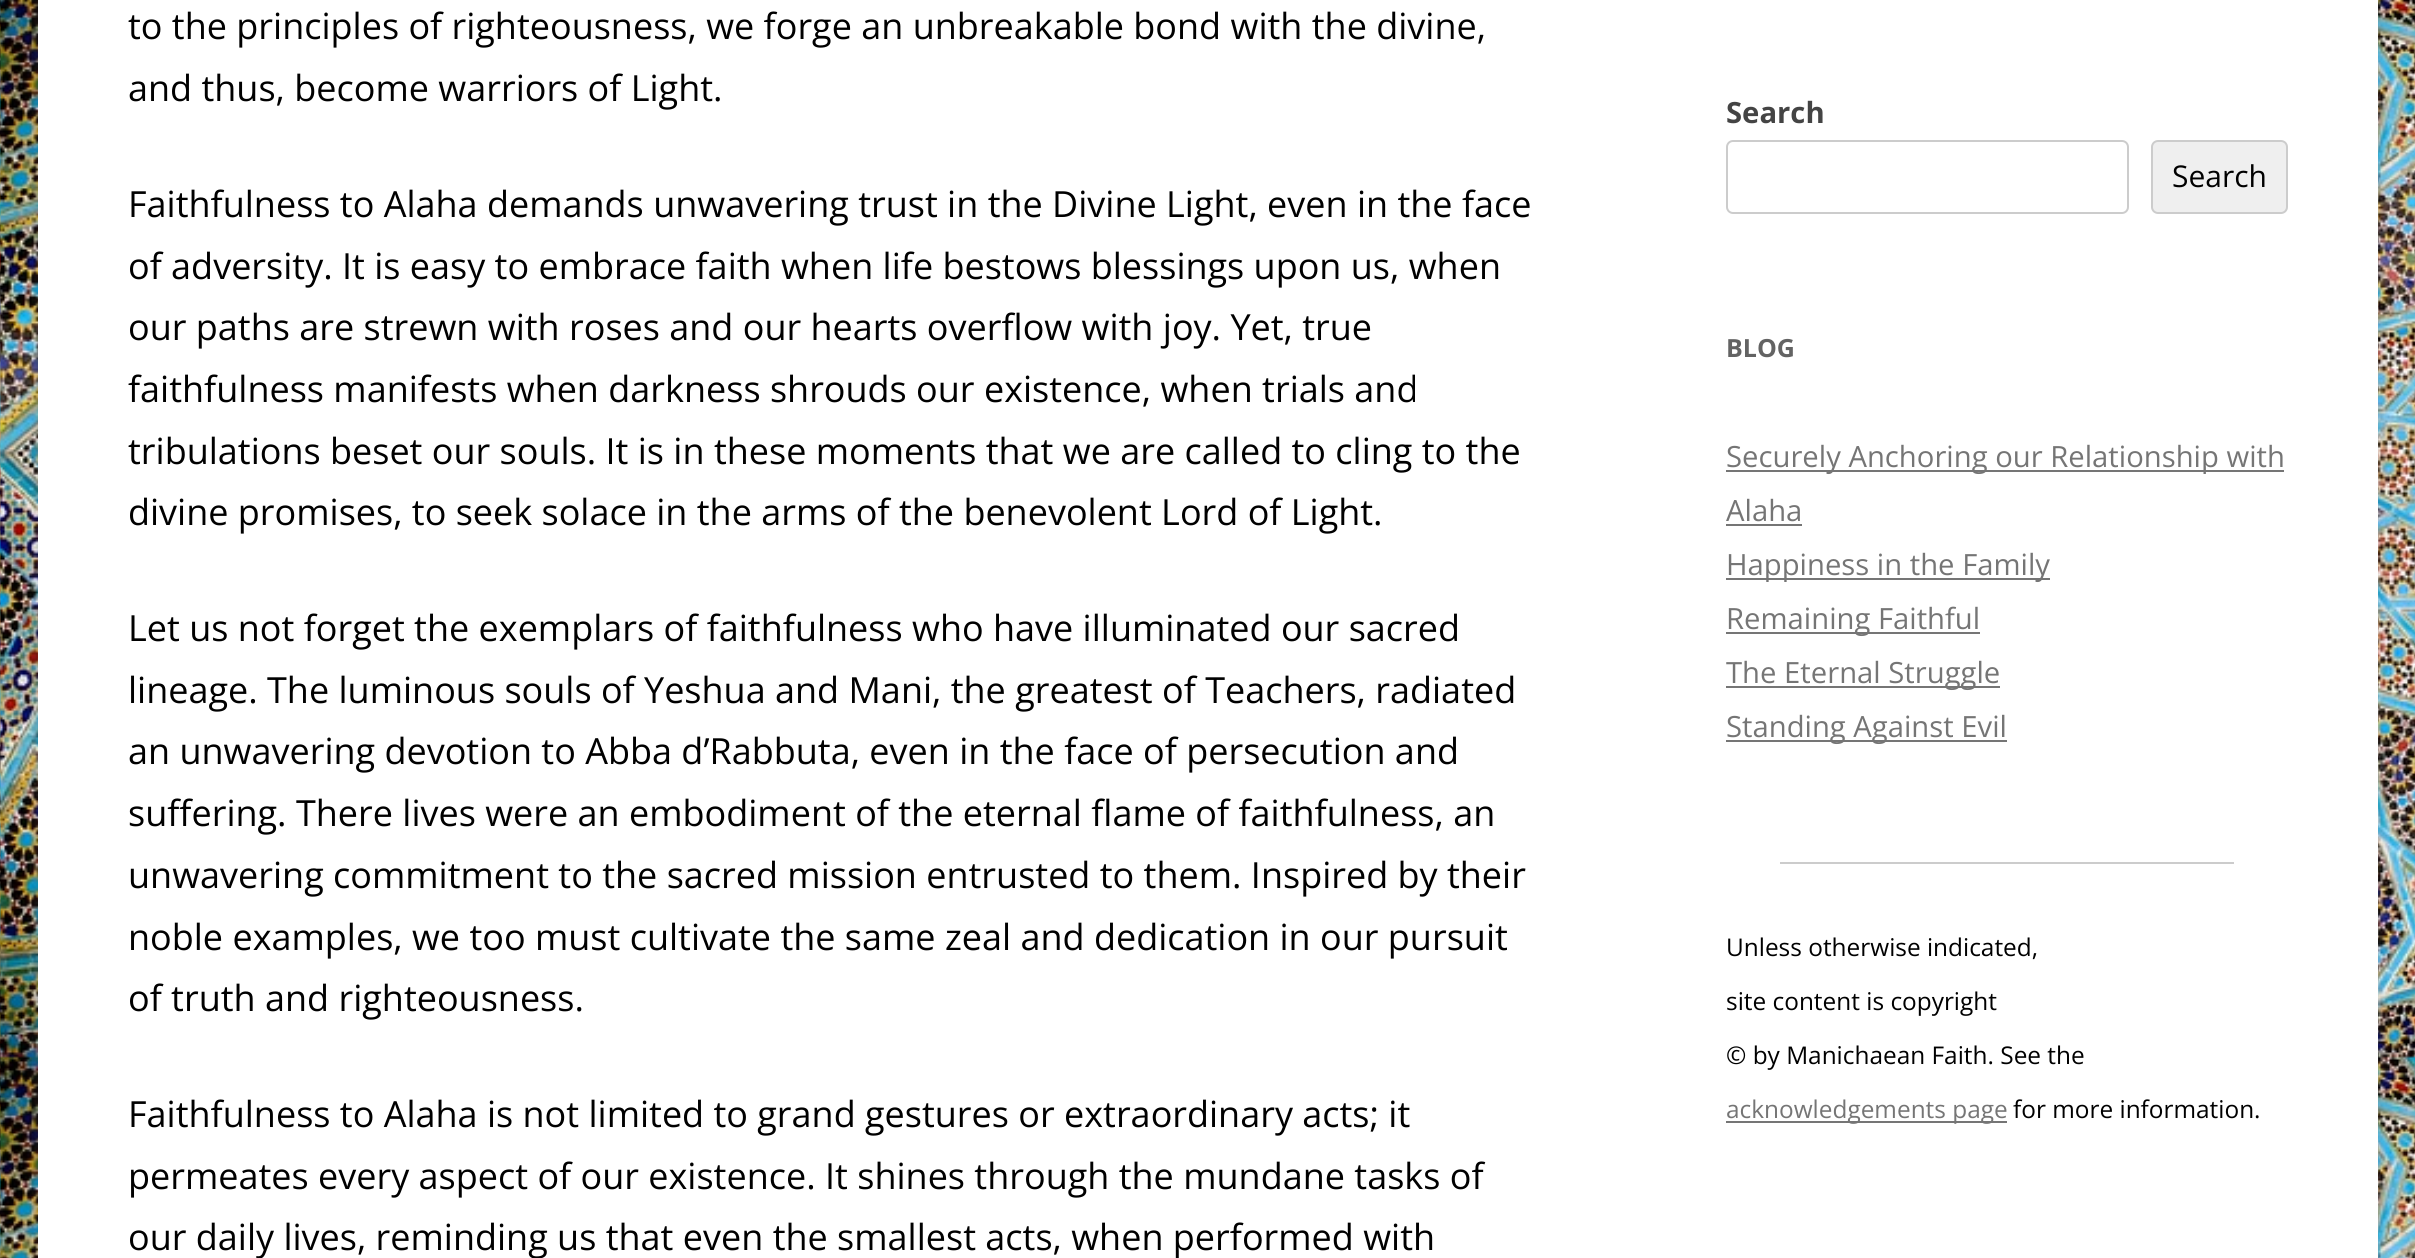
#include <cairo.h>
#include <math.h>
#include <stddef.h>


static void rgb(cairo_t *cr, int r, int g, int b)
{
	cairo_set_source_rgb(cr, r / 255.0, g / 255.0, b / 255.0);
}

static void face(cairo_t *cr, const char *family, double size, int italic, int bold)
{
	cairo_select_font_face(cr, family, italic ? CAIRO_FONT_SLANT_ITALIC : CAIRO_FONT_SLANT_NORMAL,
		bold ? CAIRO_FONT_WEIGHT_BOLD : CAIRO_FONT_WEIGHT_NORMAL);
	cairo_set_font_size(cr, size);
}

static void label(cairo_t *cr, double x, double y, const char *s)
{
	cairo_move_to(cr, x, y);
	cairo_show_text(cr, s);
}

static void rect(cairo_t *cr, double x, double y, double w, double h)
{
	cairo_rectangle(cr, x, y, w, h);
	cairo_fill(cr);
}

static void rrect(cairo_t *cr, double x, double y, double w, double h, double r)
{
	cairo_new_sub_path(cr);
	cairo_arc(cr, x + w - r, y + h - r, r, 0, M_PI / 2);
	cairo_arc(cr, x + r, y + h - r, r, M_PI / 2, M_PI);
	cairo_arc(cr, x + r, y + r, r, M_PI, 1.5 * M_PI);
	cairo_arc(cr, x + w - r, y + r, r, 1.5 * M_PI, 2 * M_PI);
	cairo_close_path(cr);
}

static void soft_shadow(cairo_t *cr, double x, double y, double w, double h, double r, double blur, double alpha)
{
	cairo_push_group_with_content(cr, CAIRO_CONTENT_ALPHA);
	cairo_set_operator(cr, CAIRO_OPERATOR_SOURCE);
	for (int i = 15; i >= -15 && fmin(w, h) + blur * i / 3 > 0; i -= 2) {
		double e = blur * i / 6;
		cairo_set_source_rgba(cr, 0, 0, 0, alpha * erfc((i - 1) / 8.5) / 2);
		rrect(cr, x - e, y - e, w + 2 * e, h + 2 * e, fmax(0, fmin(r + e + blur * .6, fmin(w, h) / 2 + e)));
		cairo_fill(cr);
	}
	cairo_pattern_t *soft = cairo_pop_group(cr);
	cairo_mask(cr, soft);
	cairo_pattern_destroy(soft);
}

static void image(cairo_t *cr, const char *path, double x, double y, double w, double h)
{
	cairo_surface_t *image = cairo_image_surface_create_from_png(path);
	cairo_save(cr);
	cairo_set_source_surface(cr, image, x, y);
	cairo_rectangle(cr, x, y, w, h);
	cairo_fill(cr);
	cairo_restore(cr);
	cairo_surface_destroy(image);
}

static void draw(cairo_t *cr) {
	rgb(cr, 255, 255, 255);
	cairo_paint(cr);
	image(cr, "image0.png", 0, 0, 2415, 1258);
	rgb(cr, 100, 100, 100);
	soft_shadow(cr, 38, -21, 2340, 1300, 0, 7, 0.3);
	rgb(cr, 255, 255, 255);
	rect(cr, 38, 0, 2340, 1258);
	face(cr, "Open Sans", 36, 0, 0);
	rgb(cr, 0, 0, 0);
	label(cr, 128, 39, "to the principles of righteousness, we forge an unbreakable bond with the divine,");
	label(cr, 128, 101, "and thus, become warriors of Light.");
	label(cr, 128, 217, "Faithfulness to Alaha demands unwavering trust in the Divine Light, even in the face");
	label(cr, 128, 279, "of adversity. It is easy to embrace faith when life bestows blessings upon us, when");
	label(cr, 128, 340, "our paths are strewn with roses and our hearts overflow with joy. Yet, true");
	label(cr, 128, 402, "faithfulness manifests when darkness shrouds our existence, when trials and");
	label(cr, 128, 464, "tribulations beset our souls. It is in these moments that we are called to cling to the");
	label(cr, 128, 525, "divine promises, to seek solace in the arms of the benevolent Lord of Light.");
	label(cr, 128, 641, "Let us not forget the exemplars of faithfulness who have illuminated our sacred");
	label(cr, 128, 703, "lineage. The luminous souls of Yeshua and Mani, the greatest of Teachers, radiated");
	label(cr, 128, 764, "an unwavering devotion to Abba d’Rabbuta, even in the face of persecution and");
	label(cr, 128, 826, "suffering. There lives were an embodiment of the eternal flame of faithfulness, an");
	label(cr, 128, 888, "unwavering commitment to the sacred mission entrusted to them. Inspired by their");
	label(cr, 128, 950, "noble examples, we too must cultivate the same zeal and dedication in our pursuit");
	label(cr, 128, 1011, "of truth and righteousness.");
	label(cr, 128, 1127, "Faithfulness to Alaha is not limited to grand gestures or extraordinary acts; it");
	label(cr, 128, 1189, "permeates every aspect of our existence. It shines through the mundane tasks of");
	label(cr, 128, 1250, "our daily lives, reminding us that even the smallest acts, when performed with");
	face(cr, "Open Sans", 29.25, 0, 1);
	rgb(cr, 68, 68, 68);
	label(cr, 1726, 123, "Search");
	rrect(cr, 1727, 141, 401, 72, 6);
	rgb(cr, 204, 204, 204);
	cairo_stroke(cr);
	rgb(cr, 239, 239, 239);
	rrect(cr, 2152, 141, 135, 72, 6);
	cairo_fill_preserve(cr);
	rgb(cr, 204, 204, 204);
	cairo_stroke(cr);
	face(cr, "Open Sans", 30, 0, 0);
	rgb(cr, 0, 0, 0);
	label(cr, 2172, 187, "Search");
	face(cr, "Open Sans", 25, 0, 1);
	rgb(cr, 99, 99, 99);
	label(cr, 1726, 357, "BLOG");
	rgb(cr, 117, 117, 117);
	rect(cr, 1726, 470, 558, 2);
	face(cr, "Open Sans", 29.25, 0, 0);
	label(cr, 1726, 467, "Securely Anchoring our Relationship with");
	label(cr, 1726, 521, "Alaha");
	rect(cr, 1726, 524, 76, 2);
	rect(cr, 1726, 578, 324, 2);
	label(cr, 1726, 575, "Happiness in the Family");
	rect(cr, 1726, 632, 254, 2);
	label(cr, 1726, 629, "Remaining Faithful");
	rect(cr, 1726, 686, 274, 2);
	label(cr, 1726, 683, "The Eternal Struggle");
	rect(cr, 1726, 740, 281, 2);
	label(cr, 1726, 737, "Standing Against Evil");
	rgb(cr, 204, 204, 204);
	rect(cr, 1780, 862, 454, 2);
	face(cr, "Open Sans", 24.4, 0, 0);
	rgb(cr, 0, 0, 0);
	label(cr, 1726, 956, "Unless otherwise indicated,");
	label(cr, 1726, 1010, "site content is copyright");
	label(cr, 1726, 1064, "© by Manichaean Faith. See the");
	rgb(cr, 117, 117, 117);
	rect(cr, 1726, 1121, 281, 2);
	label(cr, 1726, 1118, "acknowledgements page");
	rgb(cr, 0, 0, 0);
	label(cr, 2013, 1118, "for more information.");
}

int main(void) {
	cairo_surface_t *surface = cairo_image_surface_create(CAIRO_FORMAT_RGB24, 2415, 1258);
	cairo_t *cr = cairo_create(surface);
	cairo_font_options_t *options = cairo_font_options_create();
	cairo_font_options_set_hint_metrics(options, CAIRO_HINT_METRICS_OFF);
	cairo_font_options_set_hint_style(options, CAIRO_HINT_STYLE_NONE);
	cairo_set_font_options(cr, options);
	cairo_set_miter_limit(cr, 4);
	draw(cr);
	cairo_surface_write_to_png(surface, "render.png");
	cairo_font_options_destroy(options);
	cairo_destroy(cr);
	cairo_surface_destroy(surface);
	return 0;
}
